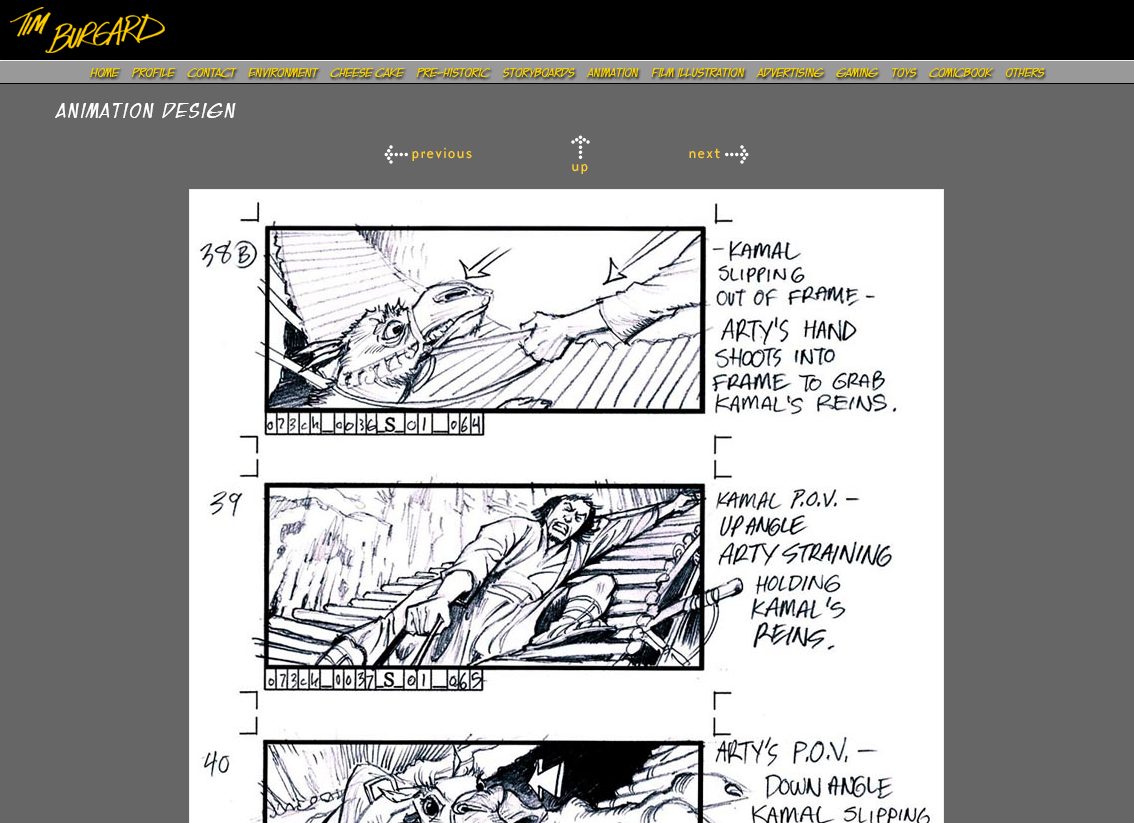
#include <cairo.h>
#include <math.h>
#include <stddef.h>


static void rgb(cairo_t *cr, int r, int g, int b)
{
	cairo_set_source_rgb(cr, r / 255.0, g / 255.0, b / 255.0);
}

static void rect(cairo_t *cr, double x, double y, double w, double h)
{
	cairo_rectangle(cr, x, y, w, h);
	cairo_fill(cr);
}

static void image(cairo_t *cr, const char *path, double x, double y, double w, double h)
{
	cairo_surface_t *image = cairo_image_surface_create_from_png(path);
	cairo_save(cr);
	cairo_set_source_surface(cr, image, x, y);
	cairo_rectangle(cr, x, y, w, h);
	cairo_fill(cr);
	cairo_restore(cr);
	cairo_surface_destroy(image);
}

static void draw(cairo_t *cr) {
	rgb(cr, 102, 102, 102);
	cairo_paint(cr);
	rgb(cr, 0, 0, 0);
	rect(cr, 0, 0, 1134, 60);
	image(cr, "image0.png", 10, 7, 155, 46);
	rgb(cr, 239, 239, 239);
	rect(cr, 0, 60, 1134, 1);
	rgb(cr, 255, 255, 255);
	rect(cr, 0, 60, 1, 1);
	rgb(cr, 153, 153, 153);
	rect(cr, 0, 61, 1134, 22);
	image(cr, "image1.png", 89, 62, 33, 19);
	image(cr, "image2.png", 131, 62, 47, 19);
	image(cr, "image3.png", 185, 62, 54, 19);
	image(cr, "image4.png", 244, 62, 77, 19);
	image(cr, "image5.png", 324, 61, 83, 20);
	image(cr, "image6.png", 416, 62, 77, 19);
	image(cr, "image7.png", 502, 62, 75, 19);
	image(cr, "image8.png", 583, 65, 62, 16);
	image(cr, "image9.png", 648, 62, 100, 19);
	image(cr, "image10.png", 756, 63, 71, 18);
	image(cr, "image11.png", 830, 62, 51, 19);
	image(cr, "image12.png", 889, 61, 30, 20);
	image(cr, "image13.png", 928, 61, 68, 20);
	image(cr, "image14.png", 1005, 68, 42, 13);
	rgb(cr, 0, 0, 0);
	rect(cr, 0, 83, 1134, 1);
	image(cr, "image15.png", 55, 103, 181, 15);
	image(cr, "image16.png", 384, 145, 88, 19);
	image(cr, "image17.png", 571, 135, 19, 39);
	image(cr, "image18.png", 689, 145, 60, 19);
	cairo_rectangle(cr, 189.5, 189.5, 754, 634);
	rgb(cr, 238, 238, 238);
	cairo_set_line_width(cr, 1);
	cairo_stroke(cr);
	image(cr, "image19.png", 190, 190, 753, 633);
}

int main(void) {
	cairo_surface_t *surface = cairo_image_surface_create(CAIRO_FORMAT_RGB24, 1134, 823);
	cairo_t *cr = cairo_create(surface);
	cairo_font_options_t *options = cairo_font_options_create();
	cairo_font_options_set_hint_metrics(options, CAIRO_HINT_METRICS_OFF);
	cairo_font_options_set_hint_style(options, CAIRO_HINT_STYLE_NONE);
	cairo_set_font_options(cr, options);
	cairo_set_miter_limit(cr, 4);
	draw(cr);
	cairo_surface_write_to_png(surface, "render.png");
	cairo_font_options_destroy(options);
	cairo_destroy(cr);
	cairo_surface_destroy(surface);
	return 0;
}
